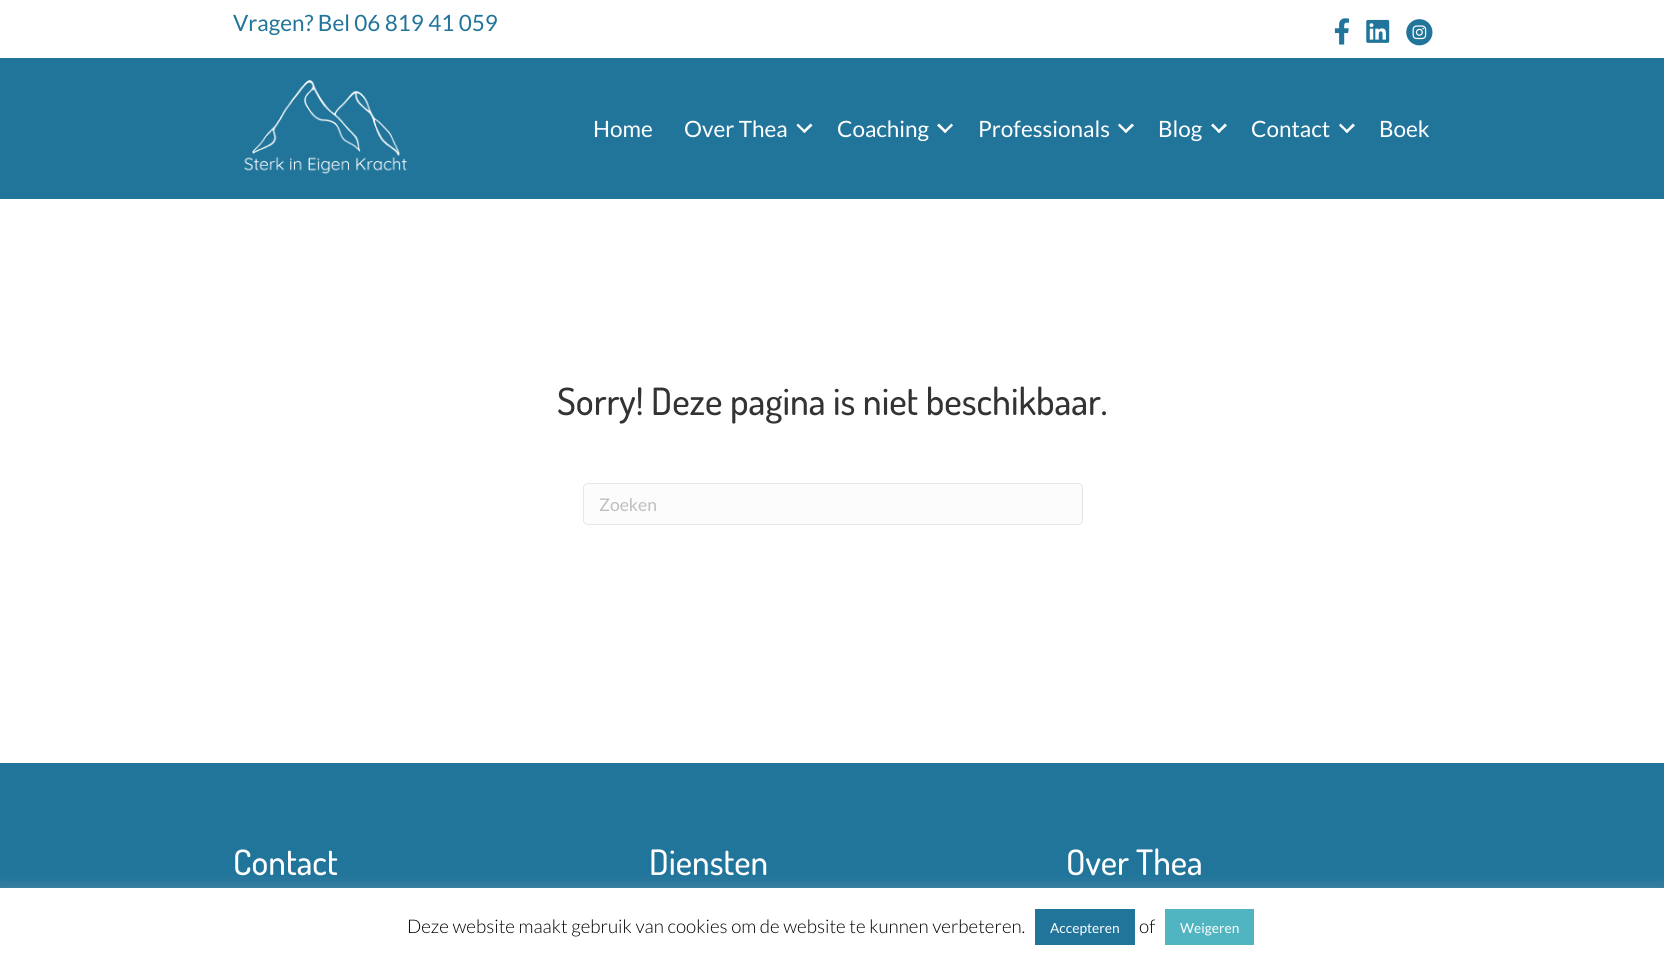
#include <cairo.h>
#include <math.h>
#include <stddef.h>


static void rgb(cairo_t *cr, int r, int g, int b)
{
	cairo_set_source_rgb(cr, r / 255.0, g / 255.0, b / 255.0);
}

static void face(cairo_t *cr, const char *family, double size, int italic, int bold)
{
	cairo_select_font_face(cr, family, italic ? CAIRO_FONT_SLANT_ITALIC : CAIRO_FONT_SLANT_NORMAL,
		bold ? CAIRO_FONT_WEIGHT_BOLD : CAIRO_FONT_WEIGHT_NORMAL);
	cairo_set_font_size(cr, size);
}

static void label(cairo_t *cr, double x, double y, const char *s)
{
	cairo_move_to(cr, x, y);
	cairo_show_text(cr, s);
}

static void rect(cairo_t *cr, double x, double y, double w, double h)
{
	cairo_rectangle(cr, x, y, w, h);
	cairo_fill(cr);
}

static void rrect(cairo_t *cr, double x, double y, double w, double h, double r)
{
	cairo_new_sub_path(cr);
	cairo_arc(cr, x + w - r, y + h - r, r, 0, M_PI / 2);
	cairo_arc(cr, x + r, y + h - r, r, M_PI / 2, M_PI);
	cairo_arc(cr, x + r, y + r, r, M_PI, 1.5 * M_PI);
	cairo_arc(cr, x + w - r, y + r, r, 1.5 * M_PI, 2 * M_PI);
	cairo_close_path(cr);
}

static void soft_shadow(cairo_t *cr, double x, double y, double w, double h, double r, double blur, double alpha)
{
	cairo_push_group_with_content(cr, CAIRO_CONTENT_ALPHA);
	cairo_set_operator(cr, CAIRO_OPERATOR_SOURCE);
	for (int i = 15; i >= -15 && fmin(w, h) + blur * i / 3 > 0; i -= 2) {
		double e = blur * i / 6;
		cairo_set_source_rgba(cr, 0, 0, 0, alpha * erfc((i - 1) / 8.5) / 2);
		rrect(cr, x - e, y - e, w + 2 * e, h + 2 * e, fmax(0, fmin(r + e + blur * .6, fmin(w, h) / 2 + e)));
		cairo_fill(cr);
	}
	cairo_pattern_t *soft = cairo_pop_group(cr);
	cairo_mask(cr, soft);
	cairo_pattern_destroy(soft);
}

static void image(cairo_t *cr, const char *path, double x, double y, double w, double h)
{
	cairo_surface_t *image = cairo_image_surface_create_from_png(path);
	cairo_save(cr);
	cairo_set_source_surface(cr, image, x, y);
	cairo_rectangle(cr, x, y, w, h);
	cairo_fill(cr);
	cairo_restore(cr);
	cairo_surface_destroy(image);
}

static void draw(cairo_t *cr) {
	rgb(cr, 255, 255, 255);
	cairo_paint(cr);
	face(cr, "Lato", 22.5, 0, 0);
	rgb(cr, 33, 117, 155);
	label(cr, 233, 31, "Vragen? Bel 06 819 41 059");
	image(cr, "image0.png", 1334, 18, 15, 27);
	image(cr, "image1.png", 1366, 19, 24, 24);
	image(cr, "image2.png", 1406, 19, 27, 27);
	rect(cr, 0, 58, 1664, 141);
	image(cr, "image3.png", 244, 80, 163, 94);
	rgb(cr, 255, 255, 255);
	label(cr, 593, 137, "Home");
	label(cr, 684, 137, "Over Thea");
	cairo_new_path(cr);
	cairo_move_to(cr, 810.5, 123.5);
	cairo_line_to(cr, 812.5, 125.5);
	cairo_line_to(cr, 804.5, 133);
	cairo_line_to(cr, 802.5, 131.5);
	cairo_close_path(cr);
	cairo_fill(cr);
	cairo_new_path(cr);
	cairo_move_to(cr, 798, 123.5);
	cairo_line_to(cr, 806, 131.5);
	cairo_line_to(cr, 804.5, 133);
	cairo_line_to(cr, 796.5, 125.5);
	cairo_close_path(cr);
	cairo_fill(cr);
	label(cr, 837, 137, "Coaching");
	cairo_new_path(cr);
	cairo_move_to(cr, 951.5, 123.5);
	cairo_line_to(cr, 953, 125.5);
	cairo_line_to(cr, 945, 133);
	cairo_line_to(cr, 943.5, 131.5);
	cairo_close_path(cr);
	cairo_fill(cr);
	cairo_new_path(cr);
	cairo_move_to(cr, 939, 123.5);
	cairo_line_to(cr, 947, 131.5);
	cairo_line_to(cr, 945, 133);
	cairo_line_to(cr, 937, 125.5);
	cairo_close_path(cr);
	cairo_fill(cr);
	label(cr, 978, 137, "Professionals");
	cairo_new_path(cr);
	cairo_move_to(cr, 1132, 123.5);
	cairo_line_to(cr, 1134, 125.5);
	cairo_line_to(cr, 1126, 133);
	cairo_line_to(cr, 1124, 131.5);
	cairo_close_path(cr);
	cairo_fill(cr);
	cairo_new_path(cr);
	cairo_move_to(cr, 1119.5, 123.5);
	cairo_line_to(cr, 1127.5, 131.5);
	cairo_line_to(cr, 1126, 133);
	cairo_line_to(cr, 1118, 125.5);
	cairo_close_path(cr);
	cairo_fill(cr);
	label(cr, 1158, 137, "Blog");
	cairo_new_path(cr);
	cairo_move_to(cr, 1225, 123.5);
	cairo_line_to(cr, 1227, 125.5);
	cairo_line_to(cr, 1219, 133);
	cairo_line_to(cr, 1217, 131.5);
	cairo_close_path(cr);
	cairo_fill(cr);
	cairo_new_path(cr);
	cairo_move_to(cr, 1213, 123.5);
	cairo_line_to(cr, 1220.5, 131.5);
	cairo_line_to(cr, 1219, 133);
	cairo_line_to(cr, 1211, 125.5);
	cairo_close_path(cr);
	cairo_fill(cr);
	label(cr, 1251, 137, "Contact");
	cairo_new_path(cr);
	cairo_move_to(cr, 1353, 123.5);
	cairo_line_to(cr, 1355, 125.5);
	cairo_line_to(cr, 1347, 133);
	cairo_line_to(cr, 1345, 131.5);
	cairo_close_path(cr);
	cairo_fill(cr);
	cairo_new_path(cr);
	cairo_move_to(cr, 1340.5, 123.5);
	cairo_line_to(cr, 1348.5, 131.5);
	cairo_line_to(cr, 1347, 133);
	cairo_line_to(cr, 1339, 125.5);
	cairo_close_path(cr);
	cairo_fill(cr);
	label(cr, 1379, 137, "Boek");
	face(cr, "Dosis Medium", 37.5, 0, 0);
	rgb(cr, 51, 51, 51);
	label(cr, 557, 415, "Sorry! Deze pagina is niet beschikbaar.");
	rgb(cr, 252, 252, 252);
	rrect(cr, 583.5, 483.5, 499, 41, 4.5);
	cairo_fill_preserve(cr);
	rgb(cr, 230, 230, 230);
	cairo_set_line_width(cr, 1);
	cairo_stroke(cr);
	face(cr, "Lato", 17.5, 0, 0);
	rgb(cr, 190, 190, 190);
	label(cr, 599, 511, "Zoeken");
	rgb(cr, 33, 117, 155);
	rect(cr, 0, 763, 1664, 125);
	face(cr, "Dosis Medium", 35, 0, 0);
	rgb(cr, 255, 255, 255);
	label(cr, 233, 875, "Contact");
	label(cr, 649, 875, "Diensten");
	label(cr, 1066, 875, "Over Thea");
	rgb(cr, 172, 171, 171);
	soft_shadow(cr, 0, 886, 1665, 73, 0, 6, 0.3);
	rgb(cr, 255, 255, 255);
	rect(cr, 0, 888, 1664, 72);
	face(cr, "Lato Light", 18.75, 0, 0);
	rgb(cr, 0, 0, 0);
	label(cr, 407, 933, "Deze website maakt gebruik van cookies om de website te kunnen verbeteren.");
	rgb(cr, 33, 117, 155);
	rect(cr, 1035, 909, 100, 36);
	face(cr, "Lato", 13.75, 0, 0);
	rgb(cr, 255, 255, 255);
	label(cr, 1050, 933, "Accepteren");
	face(cr, "Lato Light", 18.75, 0, 0);
	rgb(cr, 0, 0, 0);
	label(cr, 1139, 933, "of");
	rgb(cr, 81, 180, 193);
	rect(cr, 1165, 909, 89, 36);
	face(cr, "Lato", 13.75, 0, 0);
	rgb(cr, 255, 255, 255);
	label(cr, 1180, 933, "Weigeren");
}

int main(void) {
	cairo_surface_t *surface = cairo_image_surface_create(CAIRO_FORMAT_RGB24, 1664, 960);
	cairo_t *cr = cairo_create(surface);
	cairo_font_options_t *options = cairo_font_options_create();
	cairo_font_options_set_hint_metrics(options, CAIRO_HINT_METRICS_OFF);
	cairo_font_options_set_hint_style(options, CAIRO_HINT_STYLE_NONE);
	cairo_set_font_options(cr, options);
	cairo_set_miter_limit(cr, 4);
	draw(cr);
	cairo_surface_write_to_png(surface, "render.png");
	cairo_font_options_destroy(options);
	cairo_destroy(cr);
	cairo_surface_destroy(surface);
	return 0;
}
